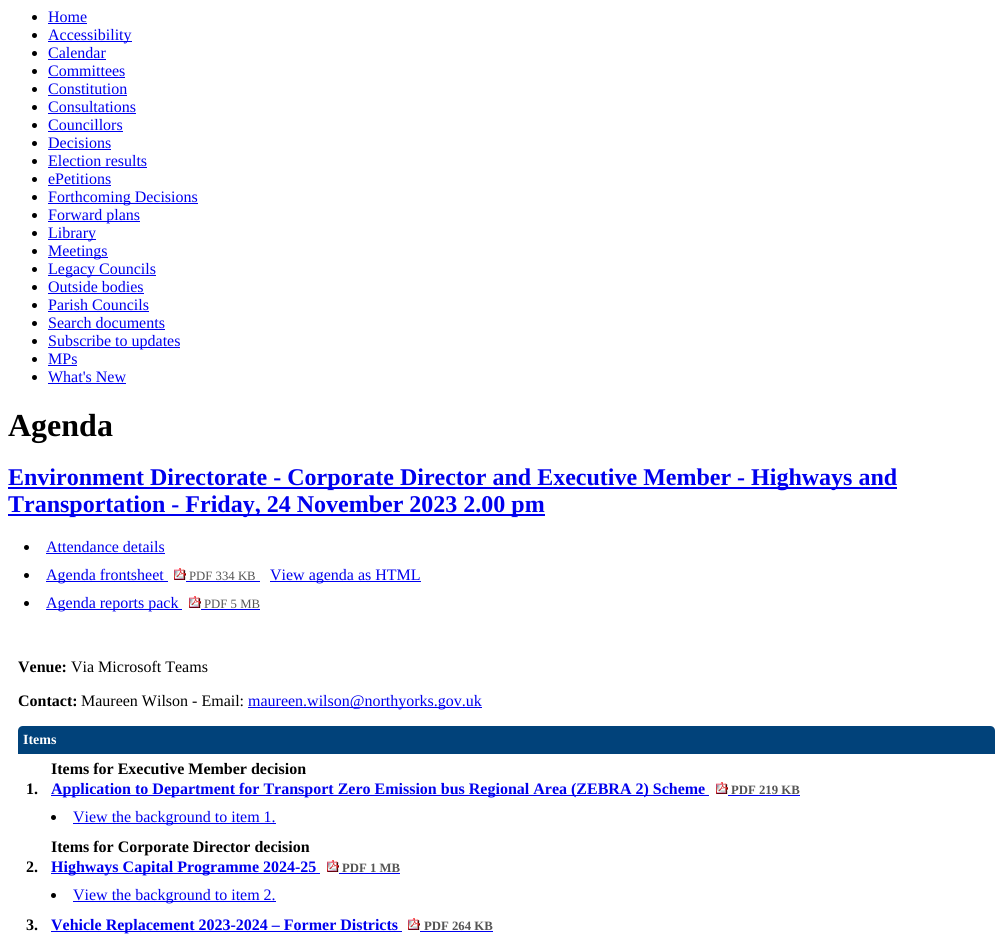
#include <cairo.h>
#include <math.h>
#include <stddef.h>


static void rgb(cairo_t *cr, int r, int g, int b)
{
	cairo_set_source_rgb(cr, r / 255.0, g / 255.0, b / 255.0);
}

static void face(cairo_t *cr, const char *family, double size, int italic, int bold)
{
	cairo_select_font_face(cr, family, italic ? CAIRO_FONT_SLANT_ITALIC : CAIRO_FONT_SLANT_NORMAL,
		bold ? CAIRO_FONT_WEIGHT_BOLD : CAIRO_FONT_WEIGHT_NORMAL);
	cairo_set_font_size(cr, size);
}

static void label(cairo_t *cr, double x, double y, const char *s)
{
	cairo_move_to(cr, x, y);
	cairo_show_text(cr, s);
}

static void rect(cairo_t *cr, double x, double y, double w, double h)
{
	cairo_rectangle(cr, x, y, w, h);
	cairo_fill(cr);
}

static void image(cairo_t *cr, const char *path, double x, double y, double w, double h)
{
	cairo_surface_t *image = cairo_image_surface_create_from_png(path);
	cairo_save(cr);
	cairo_set_source_surface(cr, image, x, y);
	cairo_rectangle(cr, x, y, w, h);
	cairo_fill(cr);
	cairo_restore(cr);
	cairo_surface_destroy(image);
}

static void draw(cairo_t *cr) {
	rgb(cr, 255, 255, 255);
	cairo_paint(cr);
	rgb(cr, 0, 0, 0);
	cairo_arc(cr, 34.5, 17.5, 2.5, 0, 2 * M_PI);
	cairo_fill(cr);
	face(cr, "Liberation Serif", 16, 0, 0);
	rgb(cr, 0, 0, 238);
	label(cr, 48, 22, "Home");
	rect(cr, 48, 23, 39, 1);
	rgb(cr, 0, 0, 0);
	cairo_new_path(cr);
	cairo_arc(cr, 34.5, 35.5, 2.5, 0, 2 * M_PI);
	cairo_fill(cr);
	rgb(cr, 0, 0, 238);
	rect(cr, 48, 41, 84, 1);
	label(cr, 48, 40, "Accessibility");
	rgb(cr, 0, 0, 0);
	cairo_new_path(cr);
	cairo_arc(cr, 34.5, 53.5, 2.5, 0, 2 * M_PI);
	cairo_fill(cr);
	rgb(cr, 0, 0, 238);
	label(cr, 48, 58, "Calendar");
	rect(cr, 48, 59, 58, 1);
	rgb(cr, 0, 0, 0);
	cairo_new_path(cr);
	cairo_arc(cr, 34.5, 71.5, 2.5, 0, 2 * M_PI);
	cairo_fill(cr);
	rgb(cr, 0, 0, 238);
	label(cr, 48, 76, "Committees");
	rect(cr, 48, 77, 77, 1);
	rgb(cr, 0, 0, 0);
	cairo_new_path(cr);
	cairo_arc(cr, 34.5, 89.5, 2.5, 0, 2 * M_PI);
	cairo_fill(cr);
	rgb(cr, 0, 0, 238);
	label(cr, 48, 94, "Constitution");
	rect(cr, 48, 95, 79, 1);
	rgb(cr, 0, 0, 0);
	cairo_new_path(cr);
	cairo_arc(cr, 34.5, 107.5, 2.5, 0, 2 * M_PI);
	cairo_fill(cr);
	rgb(cr, 0, 0, 238);
	label(cr, 48, 112, "Consultations");
	rect(cr, 48, 113, 88, 1);
	rgb(cr, 0, 0, 0);
	cairo_new_path(cr);
	cairo_arc(cr, 34.5, 125.5, 2.5, 0, 2 * M_PI);
	cairo_fill(cr);
	rgb(cr, 0, 0, 238);
	label(cr, 48, 130, "Councillors");
	rect(cr, 48, 131, 75, 1);
	rgb(cr, 0, 0, 0);
	cairo_new_path(cr);
	cairo_arc(cr, 34.5, 143.5, 2.5, 0, 2 * M_PI);
	cairo_fill(cr);
	rgb(cr, 0, 0, 238);
	label(cr, 48, 148, "Decisions");
	rect(cr, 48, 149, 63, 1);
	rgb(cr, 0, 0, 0);
	cairo_new_path(cr);
	cairo_arc(cr, 34.5, 161.5, 2.5, 0, 2 * M_PI);
	cairo_fill(cr);
	rgb(cr, 0, 0, 238);
	label(cr, 48, 166, "Election results");
	rect(cr, 48, 167, 99, 1);
	rgb(cr, 0, 0, 0);
	cairo_new_path(cr);
	cairo_arc(cr, 34.5, 179.5, 2.5, 0, 2 * M_PI);
	cairo_fill(cr);
	rgb(cr, 0, 0, 238);
	label(cr, 48, 184, "ePetitions");
	rect(cr, 48, 185, 63, 1);
	rgb(cr, 0, 0, 0);
	cairo_new_path(cr);
	cairo_arc(cr, 34.5, 197.5, 2.5, 0, 2 * M_PI);
	cairo_fill(cr);
	rgb(cr, 0, 0, 238);
	rect(cr, 48, 203, 150, 1);
	label(cr, 48, 202, "Forthcoming Decisions");
	rgb(cr, 0, 0, 0);
	cairo_new_path(cr);
	cairo_arc(cr, 34.5, 215.5, 2.5, 0, 2 * M_PI);
	cairo_fill(cr);
	rgb(cr, 0, 0, 238);
	rect(cr, 48, 221, 92, 1);
	label(cr, 48, 220, "Forward plans");
	rgb(cr, 0, 0, 0);
	cairo_new_path(cr);
	cairo_arc(cr, 34.5, 233.5, 2.5, 0, 2 * M_PI);
	cairo_fill(cr);
	rgb(cr, 0, 0, 238);
	rect(cr, 48, 239, 48, 1);
	label(cr, 48, 238, "Library");
	rgb(cr, 0, 0, 0);
	cairo_new_path(cr);
	cairo_arc(cr, 34.5, 251.5, 2.5, 0, 2 * M_PI);
	cairo_fill(cr);
	rgb(cr, 0, 0, 238);
	rect(cr, 48, 257, 60, 1);
	label(cr, 48, 256, "Meetings");
	rgb(cr, 0, 0, 0);
	cairo_new_path(cr);
	cairo_arc(cr, 34.5, 269.5, 2.5, 0, 2 * M_PI);
	cairo_fill(cr);
	rgb(cr, 0, 0, 238);
	rect(cr, 48, 275, 108, 1);
	label(cr, 48, 274, "Legacy Councils");
	rgb(cr, 0, 0, 0);
	cairo_new_path(cr);
	cairo_arc(cr, 34.5, 287.5, 2.5, 0, 2 * M_PI);
	cairo_fill(cr);
	rgb(cr, 0, 0, 238);
	label(cr, 48, 292, "Outside bodies");
	rect(cr, 48, 293, 96, 1);
	rgb(cr, 0, 0, 0);
	cairo_new_path(cr);
	cairo_arc(cr, 34.5, 305.5, 2.5, 0, 2 * M_PI);
	cairo_fill(cr);
	rgb(cr, 0, 0, 238);
	label(cr, 48, 310, "Parish Councils");
	rect(cr, 48, 311, 101, 1);
	rgb(cr, 0, 0, 0);
	cairo_new_path(cr);
	cairo_arc(cr, 34.5, 323.5, 2.5, 0, 2 * M_PI);
	cairo_fill(cr);
	rgb(cr, 0, 0, 238);
	label(cr, 48, 328, "Search documents");
	rect(cr, 48, 329, 117, 1);
	rgb(cr, 0, 0, 0);
	cairo_new_path(cr);
	cairo_arc(cr, 34.5, 341.5, 2.5, 0, 2 * M_PI);
	cairo_fill(cr);
	rgb(cr, 0, 0, 238);
	rect(cr, 48, 347, 132, 1);
	label(cr, 48, 346, "Subscribe to updates");
	rgb(cr, 0, 0, 0);
	cairo_new_path(cr);
	cairo_arc(cr, 34.5, 359.5, 2.5, 0, 2 * M_PI);
	cairo_fill(cr);
	rgb(cr, 0, 0, 238);
	label(cr, 48, 364, "MPs");
	rect(cr, 48, 365, 29, 1);
	rgb(cr, 0, 0, 0);
	cairo_new_path(cr);
	cairo_arc(cr, 34.5, 377.5, 2.5, 0, 2 * M_PI);
	cairo_fill(cr);
	rgb(cr, 0, 0, 238);
	label(cr, 48, 382, "What's New");
	rect(cr, 48, 383, 78, 1);
	face(cr, "Liberation Serif", 32, 0, 1);
	rgb(cr, 0, 0, 0);
	label(cr, 8, 436, "Agenda");
	rgb(cr, 0, 0, 238);
	rect(cr, 8, 487, 889, 2);
	face(cr, "Liberation Serif", 24, 0, 1);
	label(cr, 8, 485, "Environment Directorate - Corporate Director and Executive Member - Highways and");
	rect(cr, 8, 514, 537, 2);
	label(cr, 8, 512, "Transportation - Friday, 24 November 2023 2.00 pm");
	rgb(cr, 0, 0, 0);
	cairo_new_path(cr);
	cairo_arc(cr, 26.5, 547.5, 2.5, 0, 2 * M_PI);
	cairo_fill(cr);
	face(cr, "Liberation Serif", 16, 0, 0);
	rgb(cr, 0, 0, 238);
	label(cr, 46, 552, "Attendance details");
	rect(cr, 46, 553, 119, 1);
	rgb(cr, 0, 0, 0);
	cairo_new_path(cr);
	cairo_arc(cr, 26.5, 575.5, 2.5, 0, 2 * M_PI);
	cairo_fill(cr);
	rgb(cr, 0, 0, 238);
	rect(cr, 46, 581, 122, 1);
	label(cr, 46, 580, "Agenda frontsheet");
	image(cr, "image0.png", 174, 568, 12, 12);
	face(cr, "Liberation Serif", 12.75, 0, 0);
	rgb(cr, 85, 85, 85);
	label(cr, 189, 580, "PDF 334 KB");
	rgb(cr, 0, 0, 238);
	rect(cr, 186, 581, 74, 1);
	rect(cr, 270, 581, 151, 1);
	face(cr, "Liberation Serif", 16, 0, 0);
	label(cr, 270, 580, "View agenda as HTML");
	rgb(cr, 0, 0, 0);
	cairo_new_path(cr);
	cairo_arc(cr, 26.5, 603.5, 2.5, 0, 2 * M_PI);
	cairo_fill(cr);
	rgb(cr, 0, 0, 238);
	rect(cr, 46, 609, 136, 1);
	label(cr, 46, 608, "Agenda reports pack");
	image(cr, "image0.png", 189, 596, 12, 12);
	face(cr, "Liberation Serif", 12.75, 0, 0);
	rgb(cr, 85, 85, 85);
	label(cr, 204, 608, "PDF 5 MB");
	rgb(cr, 0, 0, 238);
	rect(cr, 201, 609, 59, 1);
	face(cr, "Liberation Serif", 16, 0, 1);
	rgb(cr, 0, 0, 0);
	label(cr, 18, 672, "Venue:");
	face(cr, "Liberation Serif", 16, 0, 0);
	label(cr, 71, 672, "Via Microsoft Teams");
	face(cr, "Liberation Serif", 16, 0, 1);
	label(cr, 18, 706, "Contact:");
	face(cr, "Liberation Serif", 16, 0, 0);
	label(cr, 81, 706, "Maureen Wilson - Email:");
	rgb(cr, 0, 0, 238);
	rect(cr, 248, 707, 234, 1);
	label(cr, 248, 706, "maureen.wilson@northyorks.gov.uk");
	rgb(cr, 1, 66, 122);
	cairo_new_path(cr);
	cairo_move_to(cr, 23, 726);
	cairo_line_to(cr, 990, 726);
	cairo_curve_to(cr, 993, 726, 995, 728, 995, 731);
	cairo_line_to(cr, 995, 754);
	cairo_line_to(cr, 18, 754);
	cairo_line_to(cr, 18, 731);
	cairo_curve_to(cr, 18, 728, 20, 726, 23, 726);
	cairo_close_path(cr);
	cairo_fill(cr);
	face(cr, "Liberation Serif", 14, 0, 1);
	rgb(cr, 255, 255, 255);
	label(cr, 23, 744, "Items");
	face(cr, "Liberation Serif", 16, 0, 1);
	rgb(cr, 0, 0, 0);
	label(cr, 51, 774, "Items for Executive Member decision");
	label(cr, 26, 794, "1.");
	rgb(cr, 0, 0, 238);
	rect(cr, 51, 795, 658, 1);
	label(cr, 51, 794, "Application to Department for Transport Zero Emission bus Regional Area (ZEBRA 2) Scheme");
	image(cr, "image0.png", 716, 782, 12, 12);
	face(cr, "Liberation Serif", 12.75, 0, 1);
	rgb(cr, 85, 85, 85);
	label(cr, 731, 794, "PDF 219 KB");
	rgb(cr, 0, 0, 238);
	rect(cr, 728, 795, 72, 1);
	rgb(cr, 0, 0, 0);
	cairo_new_path(cr);
	cairo_arc(cr, 53.5, 817.5, 2.5, 0, 2 * M_PI);
	cairo_fill(cr);
	rgb(cr, 0, 0, 238);
	rect(cr, 73, 823, 203, 1);
	face(cr, "Liberation Serif", 16, 0, 0);
	label(cr, 73, 822, "View the background to item 1.");
	face(cr, "Liberation Serif", 16, 0, 1);
	rgb(cr, 0, 0, 0);
	label(cr, 51, 852, "Items for Corporate Director decision");
	label(cr, 26, 872, "2.");
	rgb(cr, 0, 0, 238);
	rect(cr, 51, 873, 269, 1);
	label(cr, 51, 872, "Highways Capital Programme 2024-25");
	image(cr, "image0.png", 327, 860, 12, 12);
	face(cr, "Liberation Serif", 12.75, 0, 1);
	rgb(cr, 85, 85, 85);
	label(cr, 342, 872, "PDF 1 MB");
	rgb(cr, 0, 0, 238);
	rect(cr, 339, 873, 61, 1);
	rgb(cr, 0, 0, 0);
	cairo_new_path(cr);
	cairo_arc(cr, 53.5, 895.5, 2.5, 0, 2 * M_PI);
	cairo_fill(cr);
	rgb(cr, 0, 0, 238);
	rect(cr, 73, 901, 203, 1);
	face(cr, "Liberation Serif", 16, 0, 0);
	label(cr, 73, 900, "View the background to item 2.");
	face(cr, "Liberation Serif", 16, 0, 1);
	rgb(cr, 0, 0, 0);
	label(cr, 26, 930, "3.");
	rgb(cr, 0, 0, 238);
	rect(cr, 51, 931, 351, 1);
	label(cr, 51, 930, "Vehicle Replacement 2023-2024 – Former Districts");
	image(cr, "image0.png", 408, 918, 12, 12);
	face(cr, "Liberation Serif", 12.75, 0, 1);
	rgb(cr, 85, 85, 85);
	label(cr, 424, 930, "PDF 264 KB");
	rgb(cr, 0, 0, 238);
	rect(cr, 420, 931, 73, 1);
}

int main(void) {
	cairo_surface_t *surface = cairo_image_surface_create(CAIRO_FORMAT_RGB24, 1003, 937);
	cairo_t *cr = cairo_create(surface);
	cairo_font_options_t *options = cairo_font_options_create();
	cairo_font_options_set_hint_metrics(options, CAIRO_HINT_METRICS_OFF);
	cairo_font_options_set_hint_style(options, CAIRO_HINT_STYLE_NONE);
	cairo_set_font_options(cr, options);
	cairo_set_miter_limit(cr, 4);
	draw(cr);
	cairo_surface_write_to_png(surface, "render.png");
	cairo_font_options_destroy(options);
	cairo_destroy(cr);
	cairo_surface_destroy(surface);
	return 0;
}
